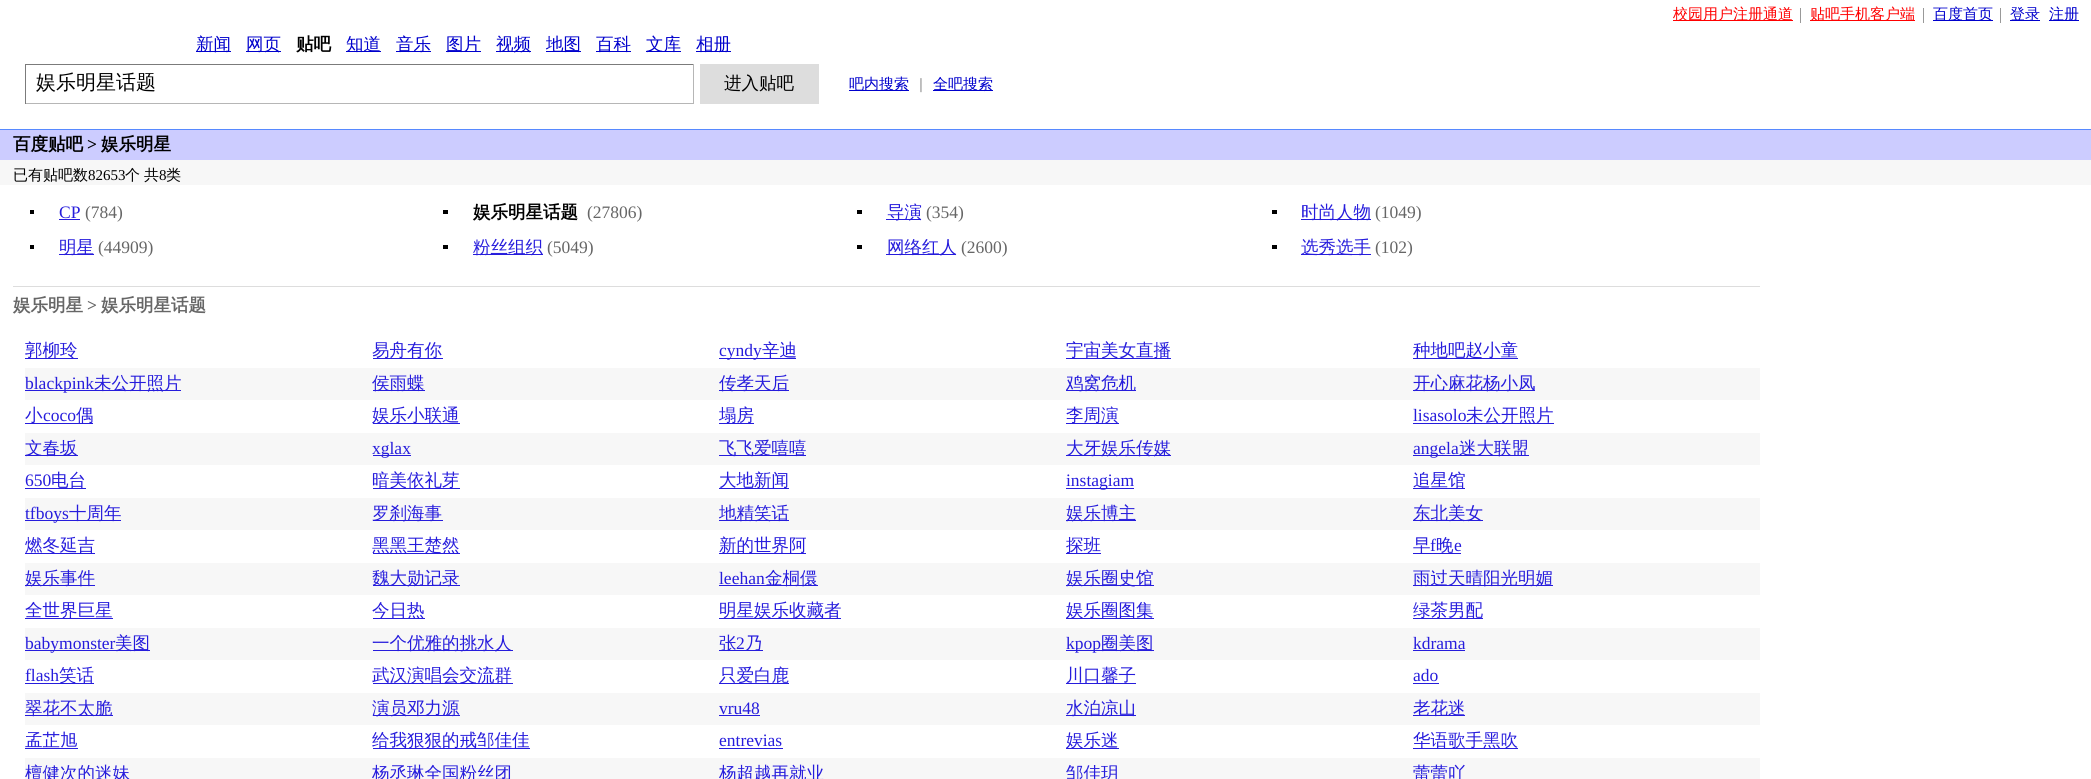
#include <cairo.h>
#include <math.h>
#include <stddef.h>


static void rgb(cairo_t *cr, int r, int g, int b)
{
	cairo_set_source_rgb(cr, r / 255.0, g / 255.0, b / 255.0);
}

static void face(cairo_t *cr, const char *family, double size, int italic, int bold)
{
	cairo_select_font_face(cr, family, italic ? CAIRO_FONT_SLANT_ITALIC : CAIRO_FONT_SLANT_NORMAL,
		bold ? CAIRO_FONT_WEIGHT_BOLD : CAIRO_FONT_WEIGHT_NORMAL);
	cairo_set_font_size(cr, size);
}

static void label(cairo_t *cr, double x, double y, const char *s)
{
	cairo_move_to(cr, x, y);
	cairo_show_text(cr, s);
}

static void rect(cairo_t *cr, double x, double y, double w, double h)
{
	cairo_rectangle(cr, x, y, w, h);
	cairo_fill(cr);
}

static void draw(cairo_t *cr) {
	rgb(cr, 255, 255, 255);
	cairo_paint(cr);
	rgb(cr, 255, 0, 0);
	rect(cr, 1673, 20, 120, 1);
	face(cr, "WenQuanYi Zen Hei Medium", 15, 0, 0);
	label(cr, 1673, 19, "校园用户注册通道");
	rgb(cr, 153, 153, 153);
	rect(cr, 1800, 8, 1, 15);
	rgb(cr, 255, 0, 0);
	rect(cr, 1810, 20, 105, 1);
	label(cr, 1810, 19, "贴吧手机客户端");
	rgb(cr, 153, 153, 153);
	rect(cr, 1923, 8, 1, 15);
	rgb(cr, 0, 0, 204);
	rect(cr, 1933, 20, 60, 1);
	label(cr, 1933, 19, "百度首页");
	rgb(cr, 153, 153, 153);
	rect(cr, 2000, 8, 1, 15);
	rgb(cr, 0, 0, 204);
	rect(cr, 2010, 20, 30, 1);
	label(cr, 2010, 19, "登录");
	rect(cr, 2049, 20, 30, 1);
	label(cr, 2049, 19, "注册");
	rect(cr, 196, 51, 35, 1);
	face(cr, "WenQuanYi Zen Hei Medium", 17.5, 0, 0);
	label(cr, 196, 50, "新闻");
	rect(cr, 246, 51, 35, 1);
	label(cr, 246, 50, "网页");
	face(cr, "WenQuanYi Zen Hei", 17.5, 0, 1);
	rgb(cr, 0, 0, 0);
	label(cr, 296, 50, "贴吧");
	rgb(cr, 0, 0, 204);
	rect(cr, 346, 51, 35, 1);
	face(cr, "WenQuanYi Zen Hei Medium", 17.5, 0, 0);
	label(cr, 346, 50, "知道");
	rect(cr, 396, 51, 35, 1);
	label(cr, 396, 50, "音乐");
	rect(cr, 446, 51, 35, 1);
	label(cr, 446, 50, "图片");
	rect(cr, 496, 51, 35, 1);
	label(cr, 496, 50, "视频");
	rect(cr, 546, 51, 35, 1);
	label(cr, 546, 50, "地图");
	rect(cr, 596, 51, 35, 1);
	label(cr, 596, 50, "百科");
	rect(cr, 646, 51, 35, 1);
	label(cr, 646, 50, "文库");
	rect(cr, 696, 51, 35, 1);
	label(cr, 696, 50, "相册");
	rgb(cr, 123, 123, 123);
	rect(cr, 25, 64, 669, 1);
	rgb(cr, 182, 182, 182);
	rect(cr, 693, 64, 1, 40);
	rect(cr, 25, 103, 669, 1);
	rgb(cr, 123, 123, 123);
	rect(cr, 25, 64, 1, 40);
	face(cr, "WenQuanYi Zen Hei Medium", 20, 0, 0);
	rgb(cr, 0, 0, 0);
	label(cr, 36, 89, "娱乐明星话题");
	rgb(cr, 221, 221, 221);
	rect(cr, 700, 64, 119, 40);
	face(cr, "WenQuanYi Zen Hei Medium", 17.5, 0, 0);
	rgb(cr, 0, 0, 0);
	label(cr, 724, 89, "进入贴吧");
	rgb(cr, 0, 0, 204);
	rect(cr, 849, 90, 60, 1);
	face(cr, "WenQuanYi Zen Hei Medium", 15, 0, 0);
	label(cr, 849, 89, "吧内搜索");
	face(cr, "Liberation Sans", 15, 0, 0);
	rgb(cr, 153, 153, 153);
	label(cr, 919, 89, "|");
	rgb(cr, 0, 0, 204);
	rect(cr, 933, 90, 60, 1);
	face(cr, "WenQuanYi Zen Hei Medium", 15, 0, 0);
	label(cr, 933, 89, "全吧搜索");
	rgb(cr, 204, 204, 255);
	rect(cr, 0, 130, 2091, 30);
	rgb(cr, 87, 137, 255);
	rect(cr, 0, 129, 2091, 1);
	face(cr, "WenQuanYi Zen Hei", 17.5, 0, 1);
	rgb(cr, 0, 0, 0);
	label(cr, 13, 150, "百度贴吧");
	face(cr, "Liberation Serif", 17.5, 0, 1);
	label(cr, 87, 150, ">");
	face(cr, "WenQuanYi Zen Hei", 17.5, 0, 1);
	label(cr, 101, 150, "娱乐明星");
	rgb(cr, 247, 247, 247);
	rect(cr, 0, 160, 2091, 25);
	face(cr, "WenQuanYi Zen Hei Medium", 15, 0, 0);
	rgb(cr, 0, 0, 0);
	label(cr, 13, 180, "已有贴吧数");
	face(cr, "Liberation Serif", 15, 0, 0);
	label(cr, 88, 180, "82653");
	face(cr, "WenQuanYi Zen Hei Medium", 15, 0, 0);
	label(cr, 125, 180, "个");
	label(cr, 144, 180, "共");
	face(cr, "Liberation Serif", 15, 0, 0);
	label(cr, 159, 180, "8");
	face(cr, "WenQuanYi Zen Hei Medium", 15, 0, 0);
	label(cr, 166, 180, "类");
	rect(cr, 30, 210, 4, 4);
	face(cr, "Liberation Serif", 17.5, 0, 0);
	rgb(cr, 38, 28, 220);
	label(cr, 59, 218, "CP");
	rect(cr, 59, 219, 21, 1);
	rgb(cr, 102, 102, 102);
	label(cr, 85, 218, "(784)");
	rgb(cr, 0, 0, 0);
	rect(cr, 443, 210, 5, 4);
	face(cr, "WenQuanYi Zen Hei", 17.5, 0, 1);
	label(cr, 473, 218, "娱乐明星话题");
	face(cr, "Liberation Serif", 17.5, 0, 0);
	rgb(cr, 102, 102, 102);
	label(cr, 587, 218, "(27806)");
	rgb(cr, 0, 0, 0);
	rect(cr, 857, 210, 5, 4);
	rgb(cr, 38, 28, 220);
	rect(cr, 886, 219, 35, 1);
	face(cr, "WenQuanYi Zen Hei Medium", 17.5, 0, 0);
	label(cr, 887, 218, "导演");
	face(cr, "Liberation Serif", 17.5, 0, 0);
	rgb(cr, 102, 102, 102);
	label(cr, 926, 218, "(354)");
	rgb(cr, 0, 0, 0);
	rect(cr, 1272, 210, 5, 4);
	rgb(cr, 38, 28, 220);
	rect(cr, 1301, 219, 70, 1);
	face(cr, "WenQuanYi Zen Hei Medium", 17.5, 0, 0);
	label(cr, 1301, 218, "时尚人物");
	face(cr, "Liberation Serif", 17.5, 0, 0);
	rgb(cr, 102, 102, 102);
	label(cr, 1375, 218, "(1049)");
	rgb(cr, 0, 0, 0);
	rect(cr, 30, 245, 4, 4);
	rgb(cr, 38, 28, 220);
	rect(cr, 59, 254, 35, 1);
	face(cr, "WenQuanYi Zen Hei Medium", 17.5, 0, 0);
	label(cr, 59, 253, "明星");
	face(cr, "Liberation Serif", 17.5, 0, 0);
	rgb(cr, 102, 102, 102);
	label(cr, 98, 253, "(44909)");
	rgb(cr, 0, 0, 0);
	rect(cr, 443, 245, 5, 4);
	rgb(cr, 38, 28, 220);
	rect(cr, 473, 254, 70, 1);
	face(cr, "WenQuanYi Zen Hei Medium", 17.5, 0, 0);
	label(cr, 473, 253, "粉丝组织");
	face(cr, "Liberation Serif", 17.5, 0, 0);
	rgb(cr, 102, 102, 102);
	label(cr, 547, 253, "(5049)");
	rgb(cr, 0, 0, 0);
	rect(cr, 857, 245, 5, 4);
	rgb(cr, 38, 28, 220);
	rect(cr, 886, 254, 70, 1);
	face(cr, "WenQuanYi Zen Hei Medium", 17.5, 0, 0);
	label(cr, 887, 253, "网络红人");
	face(cr, "Liberation Serif", 17.5, 0, 0);
	rgb(cr, 102, 102, 102);
	label(cr, 961, 253, "(2600)");
	rgb(cr, 0, 0, 0);
	rect(cr, 1272, 245, 5, 4);
	rgb(cr, 38, 28, 220);
	rect(cr, 1301, 254, 70, 1);
	face(cr, "WenQuanYi Zen Hei Medium", 17.5, 0, 0);
	label(cr, 1301, 253, "选秀选手");
	face(cr, "Liberation Serif", 17.5, 0, 0);
	rgb(cr, 102, 102, 102);
	label(cr, 1375, 253, "(102)");
	rgb(cr, 221, 221, 221);
	rect(cr, 13, 286, 1747, 1);
	face(cr, "WenQuanYi Zen Hei", 17.5, 0, 1);
	rgb(cr, 102, 102, 102);
	label(cr, 13, 311, "娱乐明星");
	face(cr, "Liberation Serif", 17.5, 0, 1);
	label(cr, 87, 311, ">");
	face(cr, "WenQuanYi Zen Hei", 17.5, 0, 1);
	label(cr, 101, 311, "娱乐明星话题");
	rgb(cr, 38, 28, 220);
	rect(cr, 25, 358, 53, 1);
	face(cr, "WenQuanYi Zen Hei Medium", 17.5, 0, 0);
	label(cr, 25, 356, "郭柳玲");
	rect(cr, 373, 358, 70, 1);
	label(cr, 372, 356, "易舟有你");
	rect(cr, 719, 358, 77, 1);
	face(cr, "Liberation Serif", 17.5, 0, 0);
	label(cr, 719, 356, "cyndy");
	face(cr, "WenQuanYi Zen Hei Medium", 17.5, 0, 0);
	label(cr, 762, 356, "辛迪");
	rect(cr, 1066, 358, 105, 1);
	label(cr, 1066, 356, "宇宙美女直播");
	rect(cr, 1413, 358, 105, 1);
	label(cr, 1413, 356, "种地吧赵小童");
	rgb(cr, 247, 247, 247);
	rect(cr, 25, 368, 1735, 32);
	rgb(cr, 38, 28, 220);
	rect(cr, 25, 390, 156, 1);
	face(cr, "Liberation Serif", 17.5, 0, 0);
	label(cr, 25, 389, "blackpink");
	face(cr, "WenQuanYi Zen Hei Medium", 17.5, 0, 0);
	label(cr, 94, 389, "未公开照片");
	rect(cr, 373, 390, 52, 1);
	label(cr, 372, 389, "侯雨蝶");
	rect(cr, 719, 390, 70, 1);
	label(cr, 719, 389, "传孝天后");
	rect(cr, 1066, 390, 70, 1);
	label(cr, 1066, 389, "鸡窝危机");
	rect(cr, 1413, 390, 122, 1);
	label(cr, 1413, 389, "开心麻花杨小凤");
	rect(cr, 25, 423, 68, 1);
	label(cr, 25, 421, "小");
	face(cr, "Liberation Serif", 17.5, 0, 0);
	label(cr, 43, 421, "coco");
	face(cr, "WenQuanYi Zen Hei Medium", 17.5, 0, 0);
	label(cr, 76, 421, "偶");
	rect(cr, 373, 423, 87, 1);
	label(cr, 372, 421, "娱乐小联通");
	rect(cr, 719, 423, 35, 1);
	label(cr, 719, 421, "塌房");
	rect(cr, 1066, 423, 53, 1);
	label(cr, 1066, 421, "李周演");
	face(cr, "Liberation Serif", 17.5, 0, 0);
	label(cr, 1413, 421, "lisasolo");
	rect(cr, 1413, 423, 141, 1);
	face(cr, "WenQuanYi Zen Hei Medium", 17.5, 0, 0);
	label(cr, 1466, 421, "未公开照片");
	rgb(cr, 247, 247, 247);
	rect(cr, 25, 433, 1735, 32);
	rgb(cr, 38, 28, 220);
	rect(cr, 25, 455, 53, 1);
	label(cr, 25, 454, "文春坂");
	rect(cr, 373, 455, 38, 1);
	face(cr, "Liberation Serif", 17.5, 0, 0);
	label(cr, 372, 454, "xglax");
	rect(cr, 719, 455, 87, 1);
	face(cr, "WenQuanYi Zen Hei Medium", 17.5, 0, 0);
	label(cr, 719, 454, "飞飞爱嘻嘻");
	rect(cr, 1066, 455, 105, 1);
	label(cr, 1066, 454, "大牙娱乐传媒");
	rect(cr, 1413, 455, 116, 1);
	face(cr, "Liberation Serif", 17.5, 0, 0);
	label(cr, 1413, 454, "angela");
	face(cr, "WenQuanYi Zen Hei Medium", 17.5, 0, 0);
	label(cr, 1459, 454, "迷大联盟");
	face(cr, "Liberation Serif", 17.5, 0, 0);
	label(cr, 25, 486, "650");
	rect(cr, 25, 488, 61, 1);
	face(cr, "WenQuanYi Zen Hei Medium", 17.5, 0, 0);
	label(cr, 51, 486, "电台");
	rect(cr, 373, 488, 87, 1);
	label(cr, 372, 486, "暗美依礼芽");
	rect(cr, 719, 488, 70, 1);
	label(cr, 719, 486, "大地新闻");
	rect(cr, 1066, 488, 68, 1);
	face(cr, "Liberation Serif", 17.5, 0, 0);
	label(cr, 1066, 486, "instagiam");
	rect(cr, 1413, 488, 52, 1);
	face(cr, "WenQuanYi Zen Hei Medium", 17.5, 0, 0);
	label(cr, 1413, 486, "追星馆");
	rgb(cr, 247, 247, 247);
	rect(cr, 25, 498, 1735, 32);
	rgb(cr, 38, 28, 220);
	rect(cr, 25, 520, 96, 1);
	face(cr, "Liberation Serif", 17.5, 0, 0);
	label(cr, 25, 519, "tfboys");
	face(cr, "WenQuanYi Zen Hei Medium", 17.5, 0, 0);
	label(cr, 69, 519, "十周年");
	rect(cr, 373, 520, 70, 1);
	label(cr, 372, 519, "罗刹海事");
	rect(cr, 719, 520, 70, 1);
	label(cr, 719, 519, "地精笑话");
	rect(cr, 1066, 520, 70, 1);
	label(cr, 1066, 519, "娱乐博主");
	rect(cr, 1413, 520, 70, 1);
	label(cr, 1413, 519, "东北美女");
	rect(cr, 25, 553, 70, 1);
	label(cr, 25, 551, "燃冬延吉");
	rect(cr, 373, 553, 87, 1);
	label(cr, 372, 551, "黑黑王楚然");
	rect(cr, 719, 553, 87, 1);
	label(cr, 719, 551, "新的世界阿");
	rect(cr, 1066, 553, 35, 1);
	label(cr, 1066, 551, "探班");
	rect(cr, 1413, 553, 48, 1);
	label(cr, 1413, 551, "早");
	face(cr, "Liberation Serif", 17.5, 0, 0);
	label(cr, 1430, 551, "f");
	face(cr, "WenQuanYi Zen Hei Medium", 17.5, 0, 0);
	label(cr, 1436, 551, "晚");
	face(cr, "Liberation Serif", 17.5, 0, 0);
	label(cr, 1454, 551, "e");
	rgb(cr, 247, 247, 247);
	rect(cr, 25, 563, 1735, 32);
	rgb(cr, 38, 28, 220);
	rect(cr, 25, 585, 70, 1);
	face(cr, "WenQuanYi Zen Hei Medium", 17.5, 0, 0);
	label(cr, 25, 584, "娱乐事件");
	rect(cr, 373, 585, 87, 1);
	label(cr, 372, 584, "魏大勋记录");
	face(cr, "Liberation Serif", 17.5, 0, 0);
	label(cr, 719, 584, "leehan");
	rect(cr, 719, 585, 99, 1);
	face(cr, "WenQuanYi Zen Hei Medium", 17.5, 0, 0);
	label(cr, 765, 584, "金桐儇");
	rect(cr, 1066, 585, 88, 1);
	label(cr, 1066, 584, "娱乐圈史馆");
	rect(cr, 1413, 585, 140, 1);
	label(cr, 1413, 584, "雨过天晴阳光明媚");
	rect(cr, 25, 618, 88, 1);
	label(cr, 25, 616, "全世界巨星");
	rect(cr, 373, 618, 52, 1);
	label(cr, 372, 616, "今日热");
	rect(cr, 719, 618, 122, 1);
	label(cr, 719, 616, "明星娱乐收藏者");
	rect(cr, 1066, 618, 88, 1);
	label(cr, 1066, 616, "娱乐圈图集");
	rect(cr, 1413, 618, 70, 1);
	label(cr, 1413, 616, "绿茶男配");
	rgb(cr, 247, 247, 247);
	rect(cr, 25, 628, 1735, 32);
	rgb(cr, 38, 28, 220);
	rect(cr, 25, 650, 125, 1);
	face(cr, "Liberation Serif", 17.5, 0, 0);
	label(cr, 25, 649, "babymonster");
	face(cr, "WenQuanYi Zen Hei Medium", 17.5, 0, 0);
	label(cr, 115, 649, "美图");
	rect(cr, 373, 650, 140, 1);
	label(cr, 372, 649, "一个优雅的挑水人");
	rect(cr, 719, 650, 44, 1);
	label(cr, 719, 649, "张");
	face(cr, "Liberation Serif", 17.5, 0, 0);
	label(cr, 736, 649, "2");
	face(cr, "WenQuanYi Zen Hei Medium", 17.5, 0, 0);
	label(cr, 745, 649, "乃");
	rect(cr, 1066, 650, 88, 1);
	face(cr, "Liberation Serif", 17.5, 0, 0);
	label(cr, 1066, 649, "kpop");
	face(cr, "WenQuanYi Zen Hei Medium", 17.5, 0, 0);
	label(cr, 1101, 649, "圈美图");
	face(cr, "Liberation Serif", 17.5, 0, 0);
	label(cr, 1413, 649, "kdrama");
	rect(cr, 1413, 650, 52, 1);
	label(cr, 25, 681, "flash");
	rect(cr, 25, 683, 69, 1);
	face(cr, "WenQuanYi Zen Hei Medium", 17.5, 0, 0);
	label(cr, 59, 681, "笑话");
	rect(cr, 373, 683, 140, 1);
	label(cr, 372, 681, "武汉演唱会交流群");
	rect(cr, 719, 683, 70, 1);
	label(cr, 719, 681, "只爱白鹿");
	rect(cr, 1066, 683, 70, 1);
	label(cr, 1066, 681, "川口馨子");
	face(cr, "Liberation Serif", 17.5, 0, 0);
	label(cr, 1413, 681, "ado");
	rect(cr, 1413, 683, 26, 1);
	rgb(cr, 247, 247, 247);
	rect(cr, 25, 693, 1735, 32);
	rgb(cr, 38, 28, 220);
	rect(cr, 25, 715, 88, 1);
	face(cr, "WenQuanYi Zen Hei Medium", 17.5, 0, 0);
	label(cr, 25, 714, "翠花不太脆");
	rect(cr, 373, 715, 87, 1);
	label(cr, 372, 714, "演员邓力源");
	face(cr, "Liberation Serif", 17.5, 0, 0);
	label(cr, 719, 714, "vru48");
	rect(cr, 719, 715, 41, 1);
	rect(cr, 1066, 715, 70, 1);
	face(cr, "WenQuanYi Zen Hei Medium", 17.5, 0, 0);
	label(cr, 1066, 714, "水泊凉山");
	rect(cr, 1413, 715, 52, 1);
	label(cr, 1413, 714, "老花迷");
	label(cr, 25, 746, "孟芷旭");
	rect(cr, 25, 748, 53, 1);
	rect(cr, 373, 748, 157, 1);
	label(cr, 372, 746, "给我狠狠的戒邹佳佳");
	face(cr, "Liberation Serif", 17.5, 0, 0);
	label(cr, 719, 746, "entrevias");
	rect(cr, 719, 748, 64, 1);
	rect(cr, 1066, 748, 53, 1);
	face(cr, "WenQuanYi Zen Hei Medium", 17.5, 0, 0);
	label(cr, 1066, 746, "娱乐迷");
	rect(cr, 1413, 748, 105, 1);
	label(cr, 1413, 746, "华语歌手黑吹");
	rgb(cr, 247, 247, 247);
	rect(cr, 25, 758, 1735, 21);
	rgb(cr, 38, 28, 220);
	label(cr, 25, 779, "檀健次的迷妹");
	label(cr, 372, 779, "杨丞琳全国粉丝团");
	label(cr, 719, 779, "杨超越再就业");
	label(cr, 1066, 779, "邹佳玥");
	label(cr, 1413, 779, "蕾蕾吖");
}

int main(void) {
	cairo_surface_t *surface = cairo_image_surface_create(CAIRO_FORMAT_RGB24, 2091, 779);
	cairo_t *cr = cairo_create(surface);
	cairo_font_options_t *options = cairo_font_options_create();
	cairo_font_options_set_hint_metrics(options, CAIRO_HINT_METRICS_OFF);
	cairo_font_options_set_hint_style(options, CAIRO_HINT_STYLE_NONE);
	cairo_set_font_options(cr, options);
	cairo_set_miter_limit(cr, 4);
	draw(cr);
	cairo_surface_write_to_png(surface, "render.png");
	cairo_font_options_destroy(options);
	cairo_destroy(cr);
	cairo_surface_destroy(surface);
	return 0;
}
